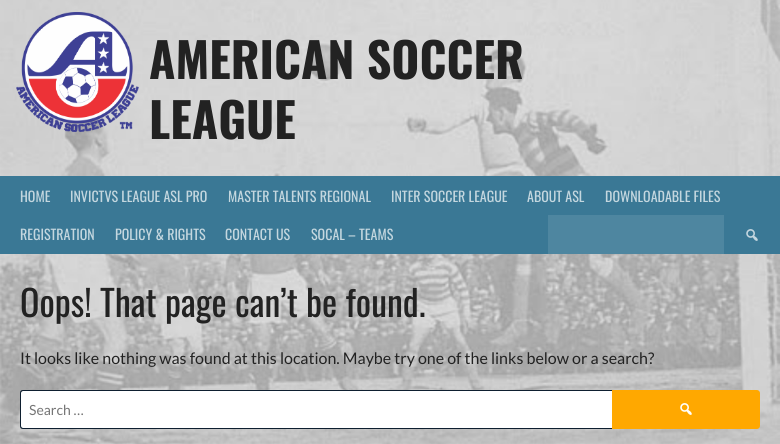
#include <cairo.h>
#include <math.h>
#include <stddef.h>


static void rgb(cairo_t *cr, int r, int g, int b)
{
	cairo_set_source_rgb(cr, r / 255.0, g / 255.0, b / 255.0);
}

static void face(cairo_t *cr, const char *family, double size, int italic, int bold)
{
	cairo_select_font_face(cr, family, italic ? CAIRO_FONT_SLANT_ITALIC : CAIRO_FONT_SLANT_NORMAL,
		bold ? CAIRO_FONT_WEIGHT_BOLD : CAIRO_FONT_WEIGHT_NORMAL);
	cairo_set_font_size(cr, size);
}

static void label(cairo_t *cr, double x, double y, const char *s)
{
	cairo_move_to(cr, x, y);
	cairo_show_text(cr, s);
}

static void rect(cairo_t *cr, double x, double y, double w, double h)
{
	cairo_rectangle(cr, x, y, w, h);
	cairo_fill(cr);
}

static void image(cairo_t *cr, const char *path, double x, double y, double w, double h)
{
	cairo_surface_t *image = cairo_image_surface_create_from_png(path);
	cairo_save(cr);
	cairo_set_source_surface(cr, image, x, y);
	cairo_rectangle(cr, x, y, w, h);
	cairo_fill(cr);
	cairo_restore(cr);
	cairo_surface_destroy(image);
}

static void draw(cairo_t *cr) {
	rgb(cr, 232, 232, 232);
	cairo_paint(cr);
	image(cr, "image0.png", 0, 0, 780, 444);
	image(cr, "image1.png", 16, 12, 123, 120);
	face(cr, "Oswald", 48, 0, 1);
	rgb(cr, 34, 34, 34);
	label(cr, 149, 79, "AMERICAN SOCCER");
	label(cr, 149, 139, "LEAGUE");
	rgb(cr, 58, 120, 149);
	rect(cr, 0, 176, 780, 78);
	face(cr, "Oswald", 14, 0, 0);
	rgb(cr, 196, 215, 223);
	label(cr, 20, 202, "HOME");
	label(cr, 70, 202, "INVICTVS LEAGUE ASL PRO");
	label(cr, 228, 202, "MASTER TALENTS REGIONAL");
	label(cr, 391, 202, "INTER SOCCER LEAGUE");
	label(cr, 527, 202, "ABOUT ASL");
	label(cr, 605, 202, "DOWNLOADABLE FILES");
	label(cr, 20, 240, "REGISTRATION");
	label(cr, 115, 240, "POLICY & RIGHTS");
	label(cr, 225, 240, "CONTACT US");
	label(cr, 311, 240, "SOCAL – TEAMS");
	rgb(cr, 78, 134, 160);
	rect(cr, 548, 215, 176, 39);
	image(cr, "image2.png", 746, 229, 12, 12);
	face(cr, "Oswald", 36, 0, 0);
	rgb(cr, 34, 34, 34);
	label(cr, 20, 317, "Oops! That page can’t be found.");
	face(cr, "Lato", 16, 0, 0);
	label(cr, 20, 364, "It looks like nothing was found at this location. Maybe try one of the links below or a search?");
	rgb(cr, 255, 255, 255);
	cairo_new_path(cr);
	cairo_move_to(cr, 23, 391);
	cairo_line_to(cr, 612, 391);
	cairo_line_to(cr, 612, 428);
	cairo_line_to(cr, 23, 428);
	cairo_curve_to(cr, 22, 428, 21, 427, 21, 426);
	cairo_line_to(cr, 21, 393);
	cairo_curve_to(cr, 21, 392, 22, 391, 23, 391);
	cairo_close_path(cr);
	cairo_fill(cr);
	rgb(cr, 14, 31, 48);
	cairo_set_fill_rule(cr, CAIRO_FILL_RULE_EVEN_ODD);
	cairo_new_path(cr);
	cairo_move_to(cr, 23, 390);
	cairo_line_to(cr, 612, 390);
	cairo_line_to(cr, 612, 429);
	cairo_line_to(cr, 23, 429);
	cairo_curve_to(cr, 21, 429, 20, 428, 20, 426);
	cairo_line_to(cr, 20, 393);
	cairo_curve_to(cr, 20, 391, 21, 390, 23, 390);
	cairo_close_path(cr);
	cairo_move_to(cr, 23, 391);
	cairo_line_to(cr, 612, 391);
	cairo_line_to(cr, 612, 428);
	cairo_line_to(cr, 23, 428);
	cairo_curve_to(cr, 22, 428, 21, 427, 21, 426);
	cairo_line_to(cr, 21, 393);
	cairo_curve_to(cr, 21, 392, 22, 391, 23, 391);
	cairo_close_path(cr);
	cairo_fill(cr);
	face(cr, "Lato", 14, 0, 0);
	rgb(cr, 117, 117, 117);
	label(cr, 29, 415, "Search …");
	rgb(cr, 255, 168, 0);
	cairo_new_path(cr);
	cairo_move_to(cr, 612, 390);
	cairo_line_to(cr, 757, 390);
	cairo_curve_to(cr, 758.5, 390, 760, 391.5, 760, 393);
	cairo_line_to(cr, 760, 426);
	cairo_curve_to(cr, 760, 427.5, 758.5, 429, 757, 429);
	cairo_line_to(cr, 612, 429);
	cairo_close_path(cr);
	cairo_fill(cr);
	image(cr, "image3.png", 680, 403, 12, 12);
}

int main(void) {
	cairo_surface_t *surface = cairo_image_surface_create(CAIRO_FORMAT_RGB24, 780, 444);
	cairo_t *cr = cairo_create(surface);
	cairo_font_options_t *options = cairo_font_options_create();
	cairo_font_options_set_hint_metrics(options, CAIRO_HINT_METRICS_OFF);
	cairo_font_options_set_hint_style(options, CAIRO_HINT_STYLE_NONE);
	cairo_set_font_options(cr, options);
	cairo_set_miter_limit(cr, 4);
	draw(cr);
	cairo_surface_write_to_png(surface, "render.png");
	cairo_font_options_destroy(options);
	cairo_destroy(cr);
	cairo_surface_destroy(surface);
	return 0;
}
